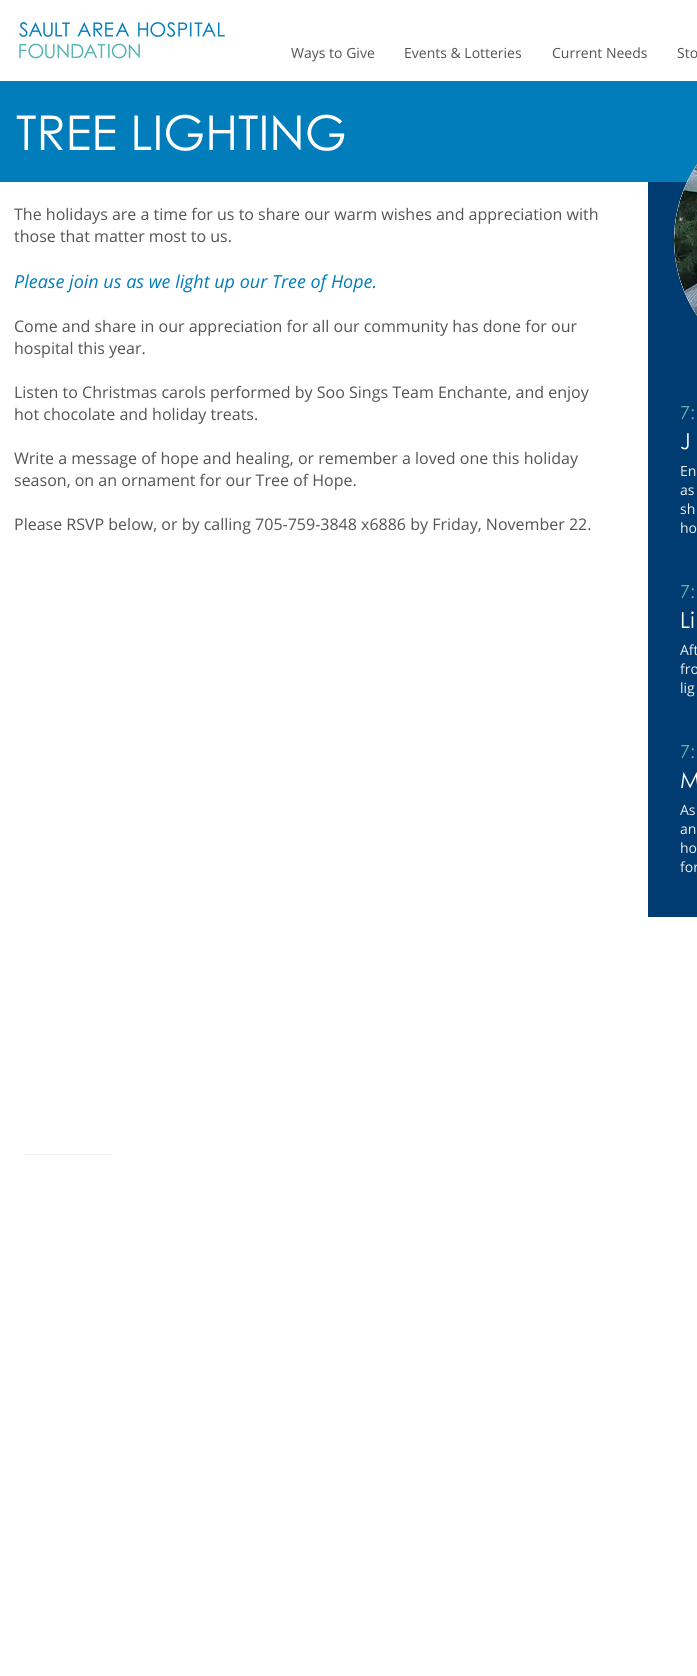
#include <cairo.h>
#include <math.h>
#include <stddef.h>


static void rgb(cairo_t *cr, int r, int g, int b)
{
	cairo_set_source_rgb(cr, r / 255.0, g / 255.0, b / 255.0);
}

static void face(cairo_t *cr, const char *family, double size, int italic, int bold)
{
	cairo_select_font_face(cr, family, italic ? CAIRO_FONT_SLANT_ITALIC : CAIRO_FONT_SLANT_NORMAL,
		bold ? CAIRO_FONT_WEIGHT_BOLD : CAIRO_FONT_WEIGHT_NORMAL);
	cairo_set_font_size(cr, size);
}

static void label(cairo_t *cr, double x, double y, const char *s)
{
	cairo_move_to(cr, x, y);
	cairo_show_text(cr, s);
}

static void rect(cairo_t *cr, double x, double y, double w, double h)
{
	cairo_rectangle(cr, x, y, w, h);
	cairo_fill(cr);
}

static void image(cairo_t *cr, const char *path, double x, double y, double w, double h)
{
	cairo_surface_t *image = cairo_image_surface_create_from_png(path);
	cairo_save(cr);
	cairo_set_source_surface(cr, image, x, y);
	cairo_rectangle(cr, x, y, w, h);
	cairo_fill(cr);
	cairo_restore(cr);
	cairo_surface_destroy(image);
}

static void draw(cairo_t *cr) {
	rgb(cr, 255, 255, 255);
	cairo_paint(cr);
	image(cr, "image0.png", 19, 22, 206, 37);
	face(cr, "Open Sans", 14, 0, 0);
	rgb(cr, 85, 83, 83);
	label(cr, 291, 58, "Ways to Give");
	label(cr, 404, 58, "Events & Lotteries");
	label(cr, 552, 58, "Current Needs");
	label(cr, 677, 58, "Sto");
	rgb(cr, 0, 125, 186);
	rect(cr, 0, 81, 697, 101);
	face(cr, "Century Gothic", 48, 0, 0);
	rgb(cr, 255, 255, 255);
	label(cr, 16, 150, "TREE LIGHTING");
	rgb(cr, 0, 60, 113);
	rect(cr, 648, 182, 49, 735);
	rgb(cr, 255, 255, 255);
	cairo_new_path(cr);
	cairo_move_to(cr, 813.5, 102);
	cairo_curve_to(cr, 890.5, 102, 953, 164, 953, 240);
	cairo_curve_to(cr, 953, 316, 890.5, 378, 813.5, 378);
	cairo_curve_to(cr, 736.5, 378, 674, 316, 674, 240);
	cairo_curve_to(cr, 674, 164, 736.5, 102, 813.5, 102);
	cairo_close_path(cr);
	cairo_fill(cr);
	image(cr, "image1.png", 674, 165, 23, 150);
	face(cr, "Open Sans", 16, 0, 0);
	rgb(cr, 85, 83, 83);
	label(cr, 14, 220, "The holidays are a time for us to share our warm wishes and appreciation with");
	label(cr, 14, 242, "those that matter most to us.");
	face(cr, "Open Sans", 18, 1, 0);
	rgb(cr, 0, 125, 186);
	label(cr, 14, 288, "Please join us as we light up our Tree of Hope.");
	face(cr, "Open Sans", 16, 0, 0);
	rgb(cr, 85, 83, 83);
	label(cr, 14, 332, "Come and share in our appreciation for all our community has done for our");
	label(cr, 14, 354, "hospital this year.");
	label(cr, 14, 398, "Listen to Christmas carols performed by Soo Sings Team Enchante, and enjoy");
	label(cr, 14, 420, "hot chocolate and holiday treats.");
	label(cr, 14, 464, "Write a message of hope and healing, or remember a loved one this holiday");
	label(cr, 14, 486, "season, on an ornament for our Tree of Hope.");
	label(cr, 14, 530, "Please RSVP below, or by calling 705-759-3848 x6886 by Friday, November 22.");
	face(cr, "Century Gothic", 18, 0, 0);
	rgb(cr, 92, 184, 178);
	label(cr, 680, 419, "7:");
	face(cr, "Century Gothic", 22, 0, 0);
	rgb(cr, 255, 255, 255);
	label(cr, 680, 449, "J");
	face(cr, "Open Sans", 14, 0, 0);
	rgb(cr, 240, 240, 240);
	label(cr, 680, 476, "En");
	label(cr, 680, 495, "as");
	label(cr, 680, 514, "sh");
	label(cr, 680, 533, "ho");
	face(cr, "Century Gothic", 18, 0, 0);
	rgb(cr, 92, 184, 178);
	label(cr, 680, 598, "7:");
	face(cr, "Century Gothic", 22, 0, 0);
	rgb(cr, 255, 255, 255);
	label(cr, 680, 628, "Li");
	face(cr, "Open Sans", 14, 0, 0);
	rgb(cr, 240, 240, 240);
	label(cr, 680, 655, "Aft");
	label(cr, 680, 674, "fro");
	label(cr, 680, 693, "lig");
	face(cr, "Century Gothic", 18, 0, 0);
	rgb(cr, 92, 184, 178);
	label(cr, 680, 758, "7:");
	face(cr, "Century Gothic", 22, 0, 0);
	rgb(cr, 255, 255, 255);
	label(cr, 680, 788, "M");
	face(cr, "Open Sans", 14, 0, 0);
	rgb(cr, 240, 240, 240);
	label(cr, 680, 815, "As");
	label(cr, 680, 834, "an");
	label(cr, 680, 853, "ho");
	label(cr, 680, 872, "for");
	rect(cr, 24, 1154, 88, 1);
}

int main(void) {
	cairo_surface_t *surface = cairo_image_surface_create(CAIRO_FORMAT_RGB24, 697, 1676);
	cairo_t *cr = cairo_create(surface);
	cairo_font_options_t *options = cairo_font_options_create();
	cairo_font_options_set_hint_metrics(options, CAIRO_HINT_METRICS_OFF);
	cairo_font_options_set_hint_style(options, CAIRO_HINT_STYLE_NONE);
	cairo_set_font_options(cr, options);
	cairo_set_miter_limit(cr, 4);
	draw(cr);
	cairo_surface_write_to_png(surface, "render.png");
	cairo_font_options_destroy(options);
	cairo_destroy(cr);
	cairo_surface_destroy(surface);
	return 0;
}
